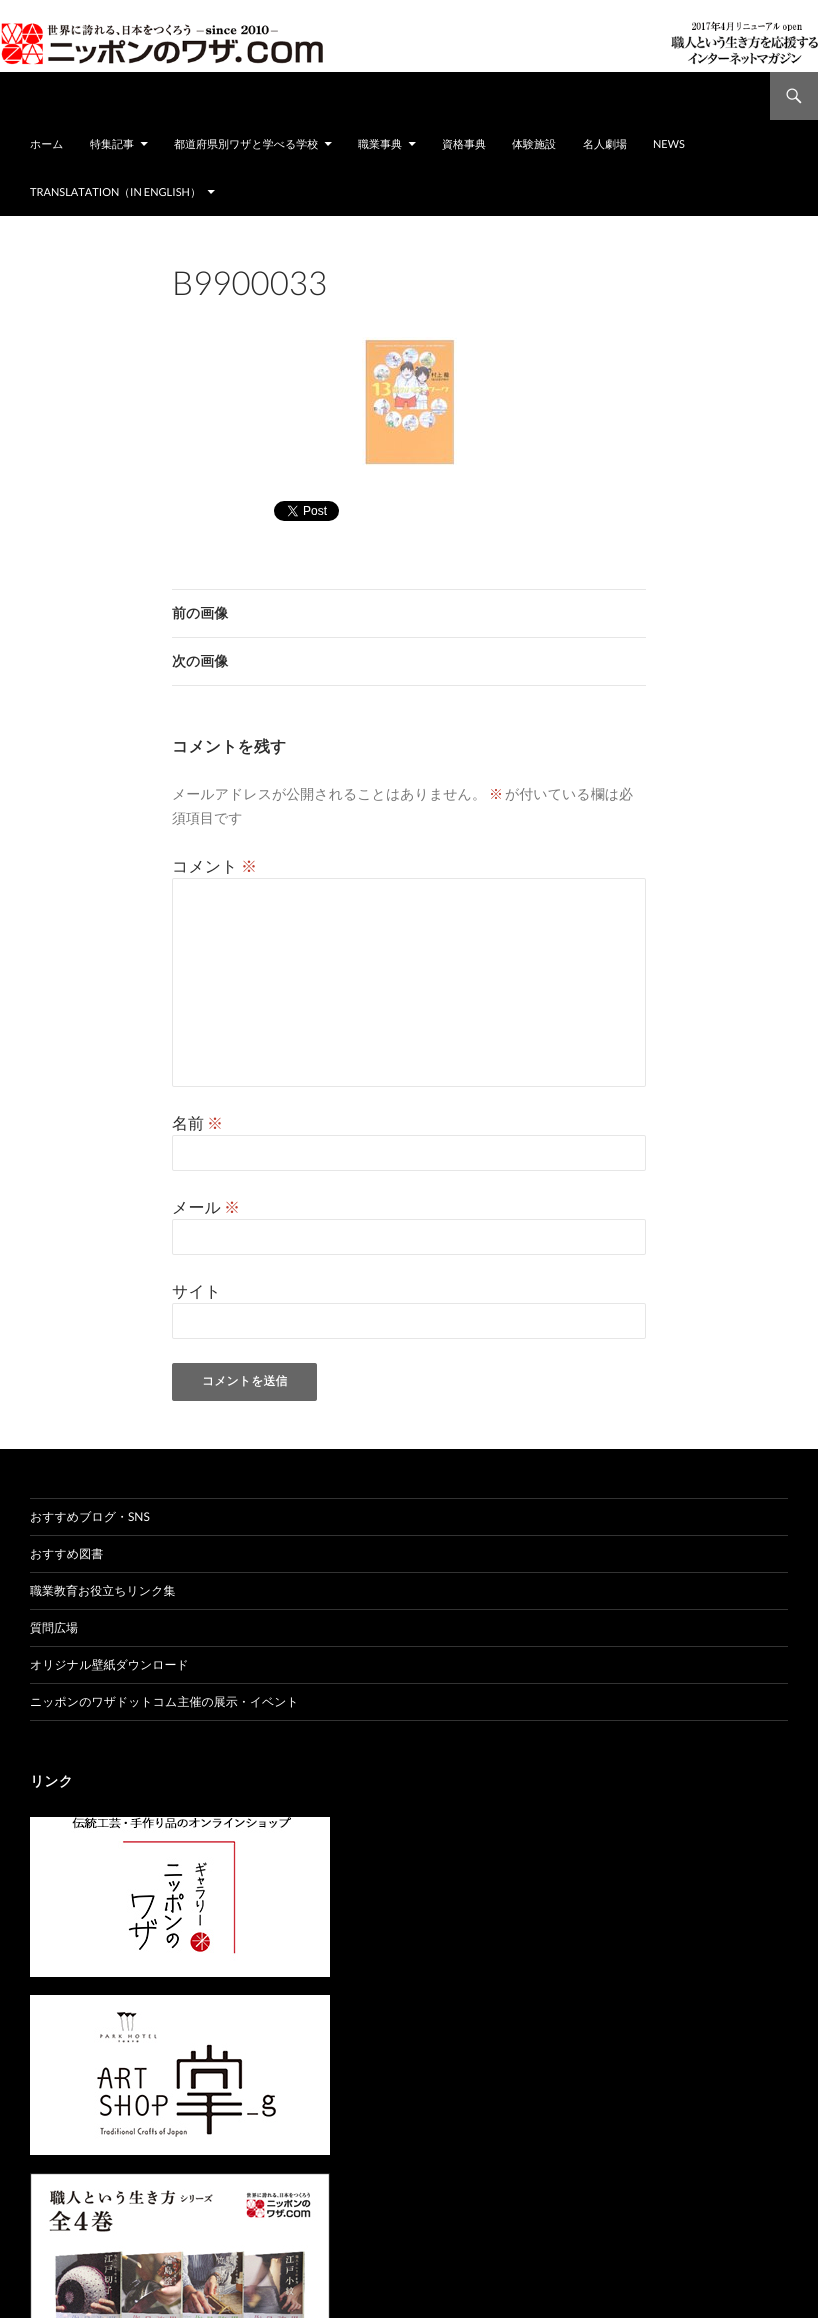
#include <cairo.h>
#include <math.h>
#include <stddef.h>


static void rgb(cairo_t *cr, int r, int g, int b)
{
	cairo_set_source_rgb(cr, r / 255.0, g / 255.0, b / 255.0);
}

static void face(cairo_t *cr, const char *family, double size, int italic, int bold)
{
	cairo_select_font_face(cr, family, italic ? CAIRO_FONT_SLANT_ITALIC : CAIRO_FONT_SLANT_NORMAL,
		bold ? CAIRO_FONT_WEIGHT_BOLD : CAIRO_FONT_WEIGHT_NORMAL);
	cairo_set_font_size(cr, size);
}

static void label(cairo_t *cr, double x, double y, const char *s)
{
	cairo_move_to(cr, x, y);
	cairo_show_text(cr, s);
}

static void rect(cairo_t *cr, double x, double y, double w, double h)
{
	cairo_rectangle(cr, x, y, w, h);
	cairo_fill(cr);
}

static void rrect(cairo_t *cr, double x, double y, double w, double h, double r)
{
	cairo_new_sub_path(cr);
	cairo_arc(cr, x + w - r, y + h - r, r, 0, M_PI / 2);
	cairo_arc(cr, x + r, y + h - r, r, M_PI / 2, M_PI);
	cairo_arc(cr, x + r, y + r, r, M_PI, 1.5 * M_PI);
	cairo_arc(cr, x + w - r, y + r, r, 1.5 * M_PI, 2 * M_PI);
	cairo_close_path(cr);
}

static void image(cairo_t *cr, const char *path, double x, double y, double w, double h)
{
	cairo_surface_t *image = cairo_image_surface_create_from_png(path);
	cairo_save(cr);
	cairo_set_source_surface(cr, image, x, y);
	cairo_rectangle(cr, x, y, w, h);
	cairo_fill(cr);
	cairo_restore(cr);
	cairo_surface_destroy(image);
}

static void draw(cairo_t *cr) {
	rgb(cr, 255, 255, 255);
	cairo_paint(cr);
	image(cr, "image0.png", 1, 21, 817, 44);
	rgb(cr, 0, 0, 0);
	rect(cr, 0, 72, 818, 144);
	rgb(cr, 102, 102, 102);
	rect(cr, 770, 72, 48, 48);
	image(cr, "image1.png", 786, 88, 16, 16);
	face(cr, "WenQuanYi Zen Hei Medium", 11, 0, 0);
	rgb(cr, 255, 255, 255);
	label(cr, 30, 148, "ホーム");
	label(cr, 90, 148, "特集記事");
	cairo_new_path(cr);
	cairo_move_to(cr, 140.5, 142);
	cairo_line_to(cr, 144, 146);
	cairo_line_to(cr, 148, 142);
	cairo_close_path(cr);
	cairo_fill(cr);
	label(cr, 174, 148, "都道府県別ワザと学べる学校");
	cairo_new_path(cr);
	cairo_move_to(cr, 324.5, 142);
	cairo_line_to(cr, 328, 146);
	cairo_line_to(cr, 332, 142);
	cairo_close_path(cr);
	cairo_fill(cr);
	label(cr, 358, 148, "職業事典");
	cairo_new_path(cr);
	cairo_move_to(cr, 408.5, 142);
	cairo_line_to(cr, 412, 146);
	cairo_line_to(cr, 416, 142);
	cairo_close_path(cr);
	cairo_fill(cr);
	label(cr, 442, 148, "資格事典");
	label(cr, 512, 148, "体験施設");
	label(cr, 583, 148, "名人劇場");
	face(cr, "Lato", 11, 0, 0);
	label(cr, 653, 148, "NEWS");
	label(cr, 30, 196, "TRANSLATATION");
	face(cr, "WenQuanYi Zen Hei Medium", 11, 0, 0);
	label(cr, 119, 196, "（");
	face(cr, "Lato", 11, 0, 0);
	label(cr, 130, 196, "IN ENGLISH");
	face(cr, "WenQuanYi Zen Hei Medium", 11, 0, 0);
	label(cr, 190, 196, "）");
	cairo_new_path(cr);
	cairo_move_to(cr, 207.5, 190);
	cairo_line_to(cr, 211, 194);
	cairo_line_to(cr, 215, 190);
	cairo_close_path(cr);
	cairo_fill(cr);
	face(cr, "Lato Light", 33, 0, 0);
	rgb(cr, 43, 43, 43);
	label(cr, 172, 295, "B9900033");
	image(cr, "image2.png", 362, 337, 95, 129);
	image(cr, "image3.png", 274, 501, 65, 20);
	rgb(cr, 230, 230, 230);
	rect(cr, 172, 589, 474, 1);
	rect(cr, 172, 637, 474, 1);
	face(cr, "WenQuanYi Zen Hei", 14, 0, 1);
	rgb(cr, 43, 43, 43);
	label(cr, 172, 618, "前の画像");
	rgb(cr, 230, 230, 230);
	rect(cr, 172, 685, 474, 1);
	rgb(cr, 43, 43, 43);
	label(cr, 172, 666, "次の画像");
	face(cr, "WenQuanYi Zen Hei", 16, 0, 1);
	label(cr, 172, 752, "コメントを残す");
	face(cr, "WenQuanYi Zen Hei Medium", 14, 0, 0);
	rgb(cr, 118, 118, 118);
	label(cr, 172, 799, "メールアドレスが公開されることはありません。");
	rgb(cr, 192, 57, 43);
	label(cr, 489, 799, "※");
	rgb(cr, 118, 118, 118);
	label(cr, 505, 799, "が付いている欄は必");
	label(cr, 172, 823, "須項目です");
	face(cr, "WenQuanYi Zen Hei Medium", 16, 0, 0);
	rgb(cr, 43, 43, 43);
	label(cr, 172, 872, "コメント");
	rgb(cr, 192, 57, 43);
	label(cr, 241, 872, "※");
	rrect(cr, 172.5, 878.5, 473, 208, 1.5);
	rgb(cr, 230, 230, 230);
	cairo_set_line_width(cr, 1);
	cairo_stroke(cr);
	rgb(cr, 43, 43, 43);
	label(cr, 172, 1129, "名前");
	rgb(cr, 192, 57, 43);
	label(cr, 207, 1129, "※");
	rrect(cr, 172.5, 1135.5, 473, 35, 1.5);
	rgb(cr, 230, 230, 230);
	cairo_stroke(cr);
	rgb(cr, 43, 43, 43);
	label(cr, 172, 1213, "メール");
	rgb(cr, 192, 57, 43);
	label(cr, 224, 1213, "※");
	rrect(cr, 172.5, 1219.5, 473, 35, 1.5);
	rgb(cr, 230, 230, 230);
	cairo_stroke(cr);
	rgb(cr, 43, 43, 43);
	label(cr, 172, 1297, "サイト");
	rrect(cr, 172.5, 1303.5, 473, 35, 1.5);
	rgb(cr, 230, 230, 230);
	cairo_stroke(cr);
	rgb(cr, 102, 102, 102);
	rrect(cr, 172, 1363, 145, 38, 2);
	cairo_fill(cr);
	face(cr, "WenQuanYi Zen Hei", 12, 0, 1);
	rgb(cr, 255, 255, 255);
	label(cr, 202, 1385, "コメントを送信");
	rgb(cr, 0, 0, 0);
	rect(cr, 0, 1449, 818, 869);
	rgb(cr, 51, 51, 51);
	rect(cr, 30, 1720, 758, 1);
	rect(cr, 30, 1498, 758, 1);
	face(cr, "WenQuanYi Zen Hei Medium", 12, 0, 0);
	rgb(cr, 255, 255, 255);
	label(cr, 30, 1521, "おすすめブログ・");
	face(cr, "Lato", 12, 0, 0);
	label(cr, 128, 1521, "SNS");
	rgb(cr, 51, 51, 51);
	rect(cr, 30, 1535, 758, 1);
	face(cr, "WenQuanYi Zen Hei Medium", 12, 0, 0);
	rgb(cr, 255, 255, 255);
	label(cr, 30, 1558, "おすすめ図書");
	rgb(cr, 51, 51, 51);
	rect(cr, 30, 1572, 758, 1);
	rgb(cr, 255, 255, 255);
	label(cr, 30, 1595, "職業教育お役立ちリンク集");
	rgb(cr, 51, 51, 51);
	rect(cr, 30, 1609, 758, 1);
	rgb(cr, 255, 255, 255);
	label(cr, 30, 1632, "質問広場");
	rgb(cr, 51, 51, 51);
	rect(cr, 30, 1646, 758, 1);
	rgb(cr, 255, 255, 255);
	label(cr, 30, 1669, "オリジナル壁紙ダウンロード");
	rgb(cr, 51, 51, 51);
	rect(cr, 30, 1683, 758, 1);
	rgb(cr, 255, 255, 255);
	label(cr, 30, 1706, "ニッポンのワザドットコム主催の展示・イベント");
	face(cr, "WenQuanYi Zen Hei", 14, 0, 1);
	label(cr, 30, 1786, "リンク");
	image(cr, "image4.png", 30, 1817, 300, 160);
	image(cr, "image5.png", 30, 1995, 300, 160);
	image(cr, "image6.png", 30, 2173, 300, 145);
}

int main(void) {
	cairo_surface_t *surface = cairo_image_surface_create(CAIRO_FORMAT_RGB24, 818, 2318);
	cairo_t *cr = cairo_create(surface);
	cairo_font_options_t *options = cairo_font_options_create();
	cairo_font_options_set_hint_metrics(options, CAIRO_HINT_METRICS_OFF);
	cairo_font_options_set_hint_style(options, CAIRO_HINT_STYLE_NONE);
	cairo_set_font_options(cr, options);
	cairo_set_miter_limit(cr, 4);
	draw(cr);
	cairo_surface_write_to_png(surface, "render.png");
	cairo_font_options_destroy(options);
	cairo_destroy(cr);
	cairo_surface_destroy(surface);
	return 0;
}
